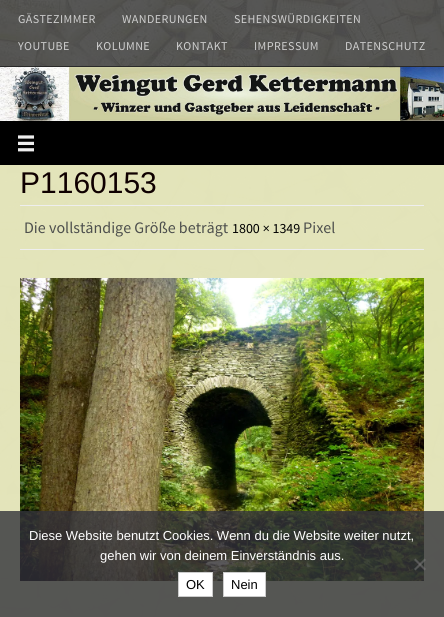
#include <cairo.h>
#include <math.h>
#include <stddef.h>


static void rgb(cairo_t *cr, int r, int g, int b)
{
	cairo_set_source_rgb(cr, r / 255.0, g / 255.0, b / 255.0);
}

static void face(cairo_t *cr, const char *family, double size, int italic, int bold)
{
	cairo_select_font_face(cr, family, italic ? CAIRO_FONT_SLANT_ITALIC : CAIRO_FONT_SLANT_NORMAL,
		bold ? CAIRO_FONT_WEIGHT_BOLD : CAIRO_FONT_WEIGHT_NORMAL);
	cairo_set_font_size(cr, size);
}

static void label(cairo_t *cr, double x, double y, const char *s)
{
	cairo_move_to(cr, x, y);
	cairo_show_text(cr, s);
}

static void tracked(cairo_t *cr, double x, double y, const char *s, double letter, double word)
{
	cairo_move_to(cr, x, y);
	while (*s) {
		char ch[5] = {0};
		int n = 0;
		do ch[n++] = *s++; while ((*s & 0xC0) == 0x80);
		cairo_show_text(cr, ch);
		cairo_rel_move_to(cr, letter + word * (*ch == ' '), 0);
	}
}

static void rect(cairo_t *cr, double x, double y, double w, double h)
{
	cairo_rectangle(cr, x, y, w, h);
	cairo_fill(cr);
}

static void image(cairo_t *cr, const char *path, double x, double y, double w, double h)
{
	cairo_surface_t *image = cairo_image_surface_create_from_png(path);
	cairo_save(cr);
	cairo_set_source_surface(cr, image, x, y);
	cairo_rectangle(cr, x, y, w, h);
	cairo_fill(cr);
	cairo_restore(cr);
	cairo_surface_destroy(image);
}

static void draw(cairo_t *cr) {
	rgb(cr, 255, 255, 255);
	cairo_paint(cr);
	image(cr, "image0.png", 0, 0, 444, 617);
	cairo_set_source_rgba(cr, 0.2, 0.2, 0.2, 0.8);
	rect(cr, 0, 0, 444, 67);
	cairo_set_source_rgba(cr, 0.122, 0.122, 0.122, 0.8);
	rect(cr, 0, 66, 444, 1);
	face(cr, "Source Sans Pro", 12, 0, 0);
	rgb(cr, 207, 207, 207);
	tracked(cr, 18, 23, "GÄSTEZIMMER", 0.4, 0);
	tracked(cr, 122, 23, "WANDERUNGEN", 0.4, 0);
	tracked(cr, 234, 23, "SEHENSWÜRDIGKEITEN", 0.4, 0);
	tracked(cr, 18, 50, "YOUTUBE", 0.4, 0);
	tracked(cr, 96, 50, "KOLUMNE", 0.4, 0);
	tracked(cr, 176, 50, "KONTAKT", 0.4, 0);
	tracked(cr, 254, 50, "IMPRESSUM", 0.4, 0);
	tracked(cr, 345, 50, "DATENSCHUTZ", 0.4, 0);
	image(cr, "image1.png", 0, 67, 444, 54);
	rgb(cr, 0, 0, 0);
	rect(cr, 0, 121, 444, 44);
	image(cr, "image2.png", 18, 135, 16, 17);
	cairo_set_source_rgba(cr, 0.89, 0.898, 0.725, 0.97);
	rect(cr, 0, 165, 444, 452);
	face(cr, "Liberation Sans", 30, 0, 0);
	rgb(cr, 15, 0, 0);
	label(cr, 20, 193, "P1160153");
	rgb(cr, 238, 238, 238);
	rect(cr, 20, 205, 404, 1);
	rect(cr, 20, 249, 404, 1);
	face(cr, "Source Sans Pro", 16, 0, 0);
	rgb(cr, 77, 79, 77);
	label(cr, 24, 233, "Die vollständige Größe beträgt");
	face(cr, "Source Sans Pro", 14, 0, 0);
	rgb(cr, 0, 0, 0);
	label(cr, 232, 233, "1800 × 1349");
	face(cr, "Source Sans Pro", 16, 0, 0);
	rgb(cr, 77, 79, 77);
	label(cr, 303, 233, "Pixel");
	image(cr, "image3.png", 20, 278, 404, 303);
	cairo_set_source_rgba(cr, 0.196, 0.196, 0.227, 0.8);
	rect(cr, 0, 511, 444, 106);
	face(cr, "Liberation Sans", 13, 0, 0);
	rgb(cr, 255, 255, 255);
	label(cr, 29, 540, "Diese Website benutzt Cookies. Wenn du die Website weiter nutzt,");
	label(cr, 100, 560, "gehen wir von deinem Einverständnis aus.");
	cairo_set_source_rgba(cr, 0.502, 0.502, 0.502, 0.5);
	cairo_new_path(cr);
	cairo_move_to(cr, 424.5, 558.5);
	cairo_line_to(cr, 426, 560);
	cairo_line_to(cr, 415.5, 570.5);
	cairo_line_to(cr, 414, 569);
	cairo_close_path(cr);
	cairo_fill(cr);
	cairo_new_path(cr);
	cairo_move_to(cr, 414, 560);
	cairo_line_to(cr, 415.5, 558.5);
	cairo_line_to(cr, 426, 569);
	cairo_line_to(cr, 424.5, 570.5);
	cairo_close_path(cr);
	cairo_fill(cr);
	rgb(cr, 255, 255, 255);
	cairo_rectangle(cr, 178.5, 572.5, 34, 24);
	cairo_fill_preserve(cr);
	rgb(cr, 204, 204, 204);
	cairo_set_line_width(cr, 1);
	cairo_stroke(cr);
	rgb(cr, 0, 0, 0);
	label(cr, 186, 589, "OK");
	rgb(cr, 255, 255, 255);
	cairo_rectangle(cr, 223.5, 572.5, 42, 24);
	cairo_fill_preserve(cr);
	rgb(cr, 204, 204, 204);
	cairo_stroke(cr);
	rgb(cr, 0, 0, 0);
	label(cr, 231, 589, "Nein");
}

int main(void) {
	cairo_surface_t *surface = cairo_image_surface_create(CAIRO_FORMAT_RGB24, 444, 617);
	cairo_t *cr = cairo_create(surface);
	cairo_font_options_t *options = cairo_font_options_create();
	cairo_font_options_set_hint_metrics(options, CAIRO_HINT_METRICS_OFF);
	cairo_font_options_set_hint_style(options, CAIRO_HINT_STYLE_NONE);
	cairo_set_font_options(cr, options);
	cairo_set_miter_limit(cr, 4);
	draw(cr);
	cairo_surface_write_to_png(surface, "render.png");
	cairo_font_options_destroy(options);
	cairo_destroy(cr);
	cairo_surface_destroy(surface);
	return 0;
}
